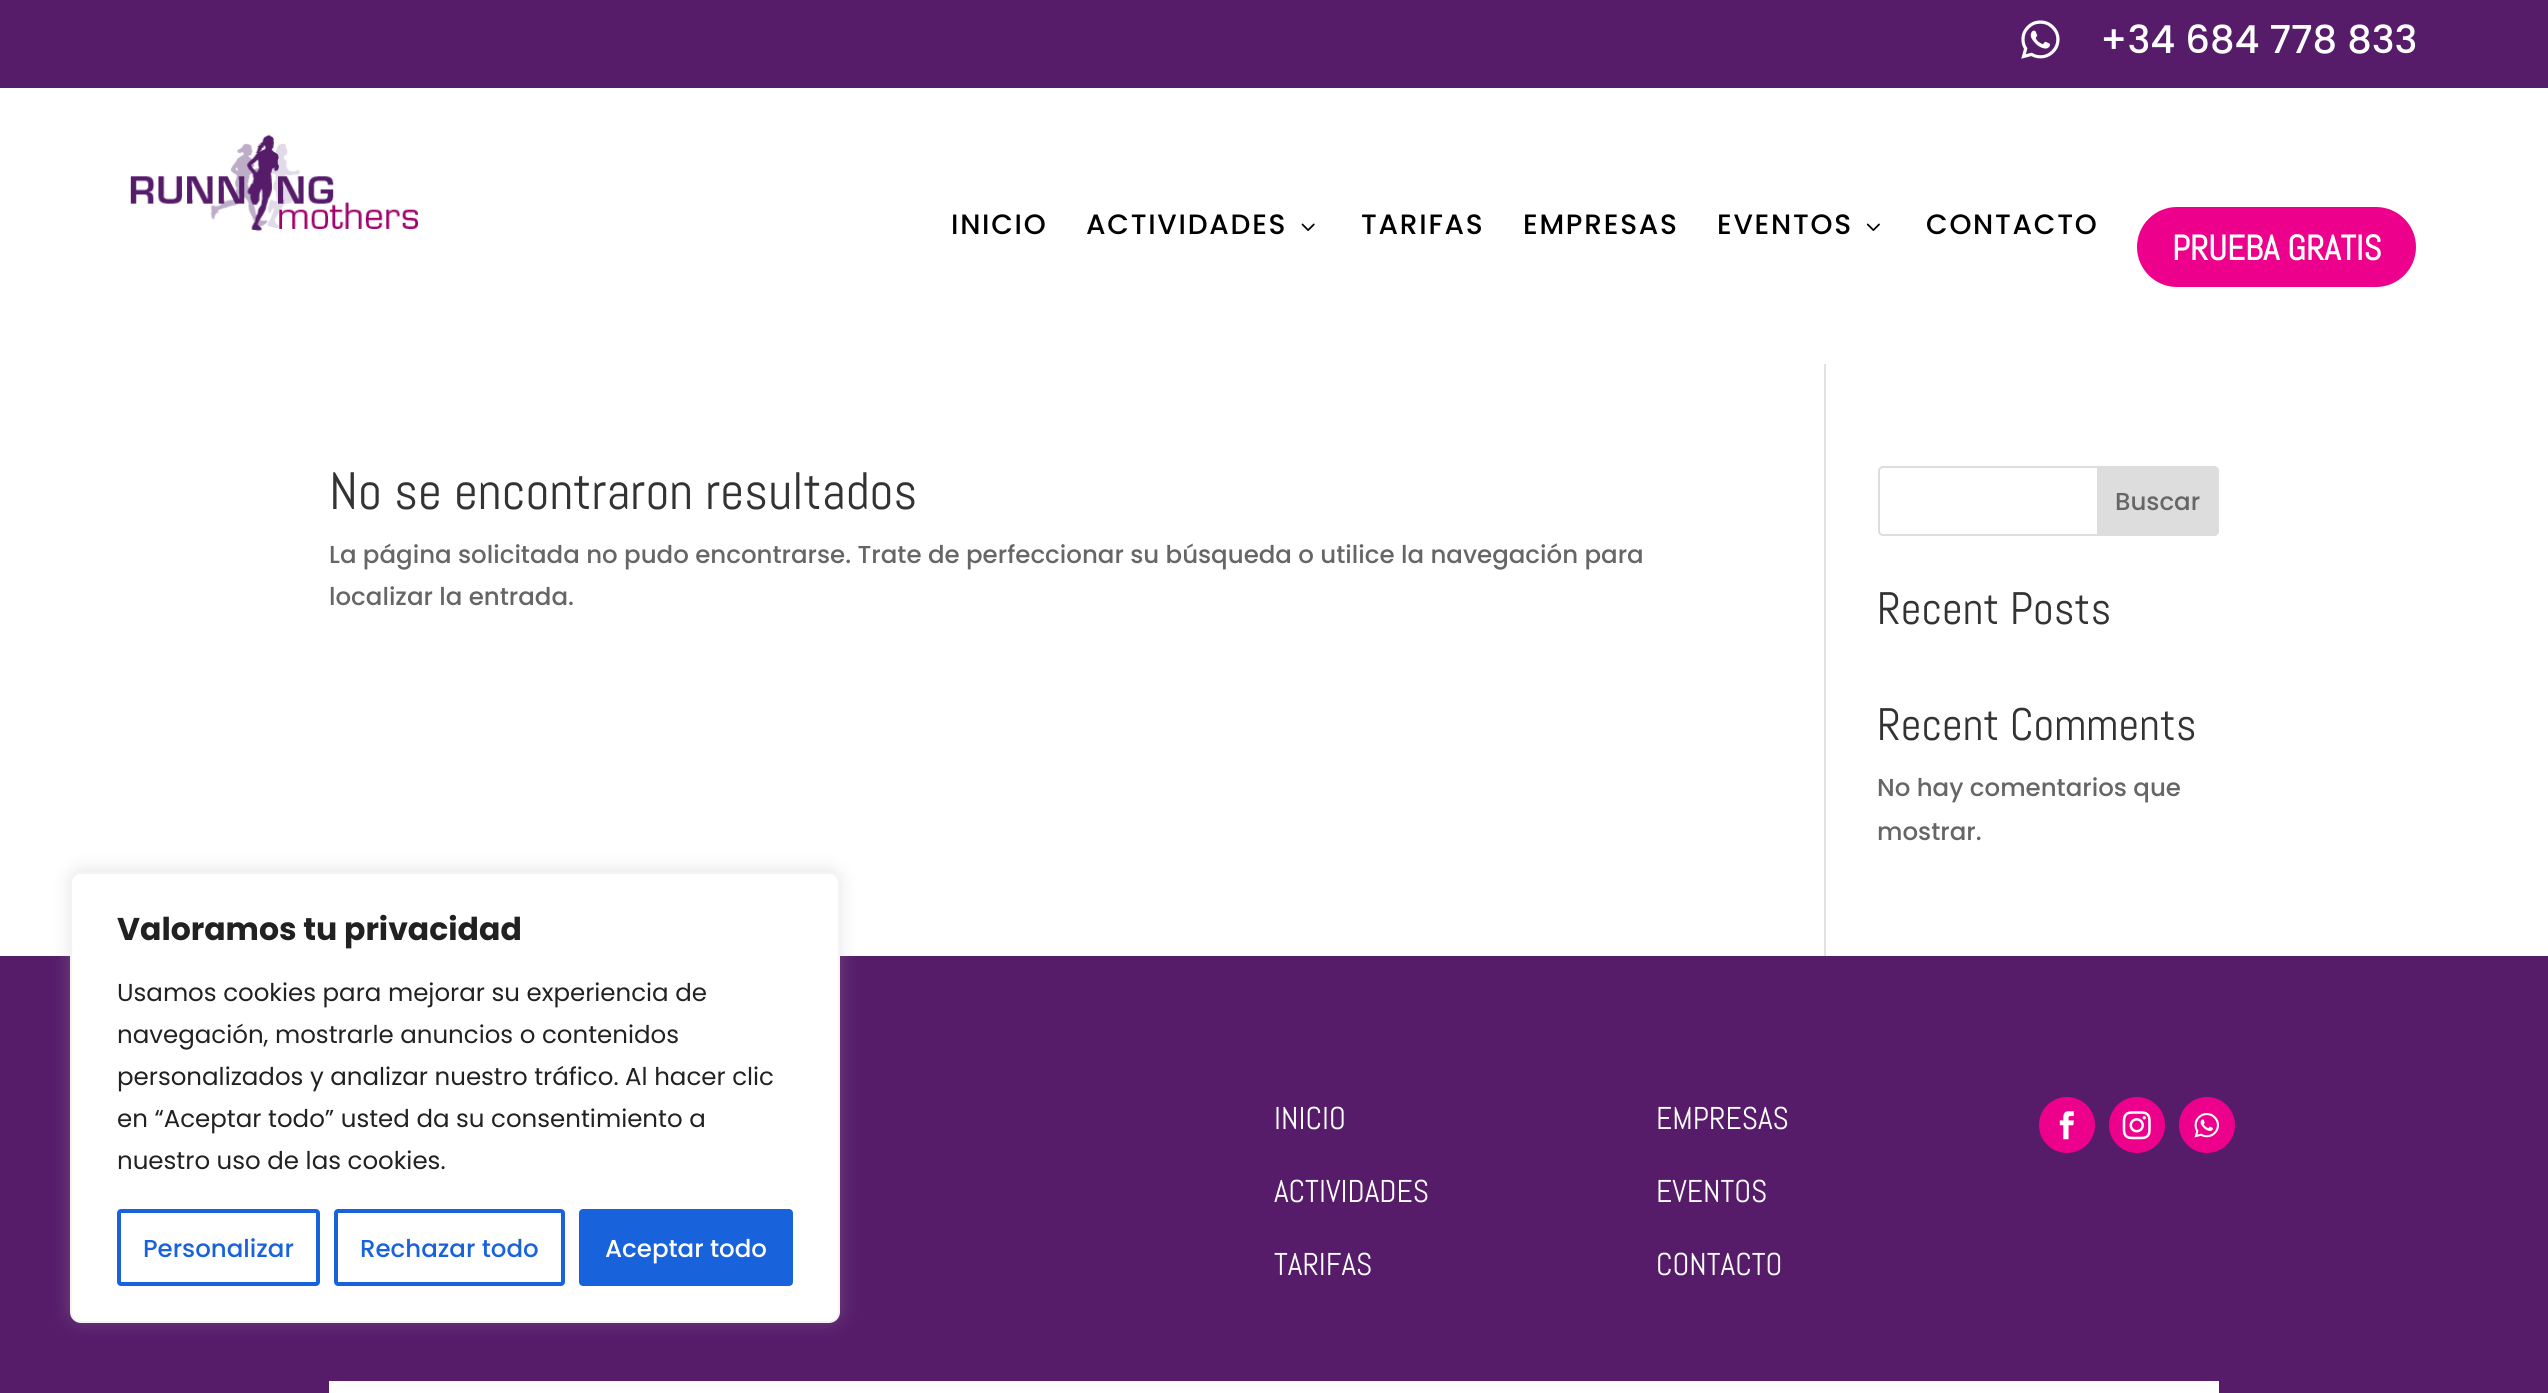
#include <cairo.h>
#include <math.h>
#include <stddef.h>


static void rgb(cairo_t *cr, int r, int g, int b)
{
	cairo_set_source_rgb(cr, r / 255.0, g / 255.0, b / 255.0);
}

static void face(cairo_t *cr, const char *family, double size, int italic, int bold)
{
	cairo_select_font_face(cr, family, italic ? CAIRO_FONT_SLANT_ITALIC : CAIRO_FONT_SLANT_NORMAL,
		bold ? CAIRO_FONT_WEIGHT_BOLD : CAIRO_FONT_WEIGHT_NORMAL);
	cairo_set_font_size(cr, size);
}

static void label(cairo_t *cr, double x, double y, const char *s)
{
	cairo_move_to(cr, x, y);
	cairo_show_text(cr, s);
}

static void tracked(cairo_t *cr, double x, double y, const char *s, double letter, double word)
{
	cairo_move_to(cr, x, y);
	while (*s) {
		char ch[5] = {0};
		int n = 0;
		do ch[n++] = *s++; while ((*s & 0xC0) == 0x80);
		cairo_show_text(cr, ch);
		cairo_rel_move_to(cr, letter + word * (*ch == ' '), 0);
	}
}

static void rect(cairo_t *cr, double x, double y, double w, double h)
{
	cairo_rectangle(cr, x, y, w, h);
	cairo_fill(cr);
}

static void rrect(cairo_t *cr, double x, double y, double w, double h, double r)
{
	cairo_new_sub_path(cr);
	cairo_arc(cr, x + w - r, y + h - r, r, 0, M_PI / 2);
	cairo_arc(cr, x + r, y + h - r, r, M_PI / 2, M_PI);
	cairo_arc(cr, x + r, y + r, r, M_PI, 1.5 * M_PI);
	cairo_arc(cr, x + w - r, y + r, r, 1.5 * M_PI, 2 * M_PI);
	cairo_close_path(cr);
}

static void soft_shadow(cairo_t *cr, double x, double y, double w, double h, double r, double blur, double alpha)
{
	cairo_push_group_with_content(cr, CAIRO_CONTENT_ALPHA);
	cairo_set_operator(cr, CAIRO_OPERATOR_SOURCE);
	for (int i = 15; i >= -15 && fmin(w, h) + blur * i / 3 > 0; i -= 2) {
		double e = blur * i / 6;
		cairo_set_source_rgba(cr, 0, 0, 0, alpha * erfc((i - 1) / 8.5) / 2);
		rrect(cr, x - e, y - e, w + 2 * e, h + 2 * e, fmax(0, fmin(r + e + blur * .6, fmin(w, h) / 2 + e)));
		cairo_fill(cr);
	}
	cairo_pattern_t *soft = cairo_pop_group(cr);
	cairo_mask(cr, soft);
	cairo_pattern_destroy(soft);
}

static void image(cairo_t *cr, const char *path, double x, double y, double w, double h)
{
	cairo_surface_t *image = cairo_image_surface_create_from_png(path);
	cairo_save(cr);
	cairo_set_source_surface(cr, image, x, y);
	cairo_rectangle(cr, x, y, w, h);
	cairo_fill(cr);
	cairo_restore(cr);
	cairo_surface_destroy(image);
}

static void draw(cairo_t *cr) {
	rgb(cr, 255, 255, 255);
	cairo_paint(cr);
	rgb(cr, 86, 28, 106);
	rect(cr, 0, 0, 2548, 88);
	image(cr, "image0.png", 2021, 20, 39, 39);
	face(cr, "Poppins Medium", 38.5, 0, 0);
	rgb(cr, 255, 255, 255);
	label(cr, 2100, 53, "+34 684 778 833");
	image(cr, "image1.png", 130, 134, 288, 97);
	face(cr, "Poppins Medium", 28, 0, 0);
	rgb(cr, 0, 0, 0);
	tracked(cr, 951, 234, "INICIO", 1.75, 0);
	tracked(cr, 1086, 234, "ACTIVIDADES", 1.75, 0);
	image(cr, "image2.png", 1301, 223, 14, 8);
	tracked(cr, 1361, 234, "TARIFAS", 1.75, 0);
	tracked(cr, 1523, 234, "EMPRESAS", 1.75, 0);
	tracked(cr, 1717, 234, "EVENTOS", 1.75, 0);
	image(cr, "image3.png", 1866, 223, 14, 8);
	tracked(cr, 1926, 234, "CONTACTO", 1.75, 0);
	rgb(cr, 237, 0, 140);
	rrect(cr, 2135, 205, 283, 84, 42);
	cairo_fill_preserve(cr);
	rgb(cr, 255, 255, 255);
	cairo_set_line_width(cr, 4);
	cairo_stroke(cr);
	face(cr, "Abel", 35, 0, 1);
	label(cr, 2172, 260, "PRUEBA GRATIS");
	rgb(cr, 226, 226, 226);
	rect(cr, 1824, 364, 2, 592);
	face(cr, "Abel", 52.5, 0, 0);
	rgb(cr, 51, 51, 51);
	label(cr, 329, 509, "No se encontraron resultados");
	face(cr, "Poppins Medium", 24.5, 0, 0);
	rgb(cr, 102, 102, 102);
	label(cr, 329, 563, "La página solicitada no pudo encontrarse. Trate de perfeccionar su búsqueda o utilice la navegación para");
	label(cr, 329, 605, "localizar la entrada.");
	rrect(cr, 1879, 467, 339, 68, 4);
	rgb(cr, 221, 221, 221);
	cairo_set_line_width(cr, 2);
	cairo_stroke(cr);
	cairo_new_path(cr);
	cairo_move_to(cr, 2098, 467);
	cairo_line_to(cr, 2214, 467);
	cairo_curve_to(cr, 2216, 467, 2218, 469, 2218, 471);
	cairo_line_to(cr, 2218, 531);
	cairo_curve_to(cr, 2218, 533, 2216, 535, 2214, 535);
	cairo_line_to(cr, 2098, 535);
	cairo_close_path(cr);
	cairo_fill_preserve(cr);
	cairo_stroke(cr);
	rgb(cr, 102, 102, 102);
	label(cr, 2115, 510, "Buscar");
	face(cr, "Abel", 45.5, 0, 0);
	rgb(cr, 51, 51, 51);
	label(cr, 1877, 624, "Recent Posts");
	label(cr, 1877, 740, "Recent Comments");
	face(cr, "Poppins Medium", 24.5, 0, 0);
	rgb(cr, 102, 102, 102);
	label(cr, 1877, 796, "No hay comentarios que");
	label(cr, 1877, 840, "mostrar.");
	rgb(cr, 86, 28, 106);
	rect(cr, 0, 956, 2548, 437);
	face(cr, "Abel", 31.5, 0, 0);
	rgb(cr, 255, 255, 255);
	label(cr, 1274, 1129, "INICIO");
	label(cr, 1274, 1202, "ACTIVIDADES");
	label(cr, 1274, 1275, "TARIFAS");
	label(cr, 1656, 1129, "EMPRESAS");
	label(cr, 1656, 1202, "EVENTOS");
	label(cr, 1656, 1275, "CONTACTO");
	rgb(cr, 237, 0, 140);
	cairo_new_path(cr);
	cairo_arc(cr, 2067, 1125, 28, 0, 2 * M_PI);
	cairo_fill(cr);
	image(cr, "image4.png", 2059, 1111, 15, 29);
	cairo_arc(cr, 2137, 1125, 28, 0, 2 * M_PI);
	cairo_fill(cr);
	image(cr, "image5.png", 2122, 1111, 29, 29);
	cairo_arc(cr, 2207, 1125, 28, 0, 2 * M_PI);
	cairo_fill(cr);
	image(cr, "image6.png", 2194, 1113, 25, 25);
	rgb(cr, 255, 255, 255);
	rect(cr, 329, 1381, 1890, 12);
	rgb(cr, 172, 171, 171);
	soft_shadow(cr, 70, 870, 770, 451, 11, 9, 0.3);
	rgb(cr, 255, 255, 255);
	rrect(cr, 71, 873, 768, 449, 10);
	cairo_fill_preserve(cr);
	rgb(cr, 244, 244, 244);
	cairo_stroke(cr);
	face(cr, "Poppins", 31.5, 0, 1);
	rgb(cr, 33, 33, 33);
	label(cr, 117, 940, "Valoramos tu privacidad");
	face(cr, "Poppins", 24.5, 0, 0);
	label(cr, 117, 1001, "Usamos cookies para mejorar su experiencia de");
	label(cr, 117, 1043, "navegación, mostrarle anuncios o contenidos");
	label(cr, 117, 1085, "personalizados y analizar nuestro tráfico. Al hacer clic");
	label(cr, 117, 1127, "en “Aceptar todo” usted da su consentimiento a");
	label(cr, 117, 1169, "nuestro uso de las cookies.");
	rrect(cr, 119, 1211, 199, 73, 2);
	rgb(cr, 24, 99, 220);
	cairo_set_line_width(cr, 4);
	cairo_stroke(cr);
	face(cr, "Poppins Medium", 24.5, 0, 0);
	label(cr, 143, 1257, "Personalizar");
	rrect(cr, 336, 1211, 227, 73, 2);
	cairo_stroke(cr);
	label(cr, 360, 1257, "Rechazar todo");
	rrect(cr, 581, 1211, 210, 73, 2);
	cairo_fill_preserve(cr);
	cairo_stroke(cr);
	rgb(cr, 255, 255, 255);
	label(cr, 605, 1257, "Aceptar todo");
}

int main(void) {
	cairo_surface_t *surface = cairo_image_surface_create(CAIRO_FORMAT_RGB24, 2548, 1393);
	cairo_t *cr = cairo_create(surface);
	cairo_font_options_t *options = cairo_font_options_create();
	cairo_font_options_set_hint_metrics(options, CAIRO_HINT_METRICS_OFF);
	cairo_font_options_set_hint_style(options, CAIRO_HINT_STYLE_NONE);
	cairo_set_font_options(cr, options);
	cairo_set_miter_limit(cr, 4);
	draw(cr);
	cairo_surface_write_to_png(surface, "render.png");
	cairo_font_options_destroy(options);
	cairo_destroy(cr);
	cairo_surface_destroy(surface);
	return 0;
}
